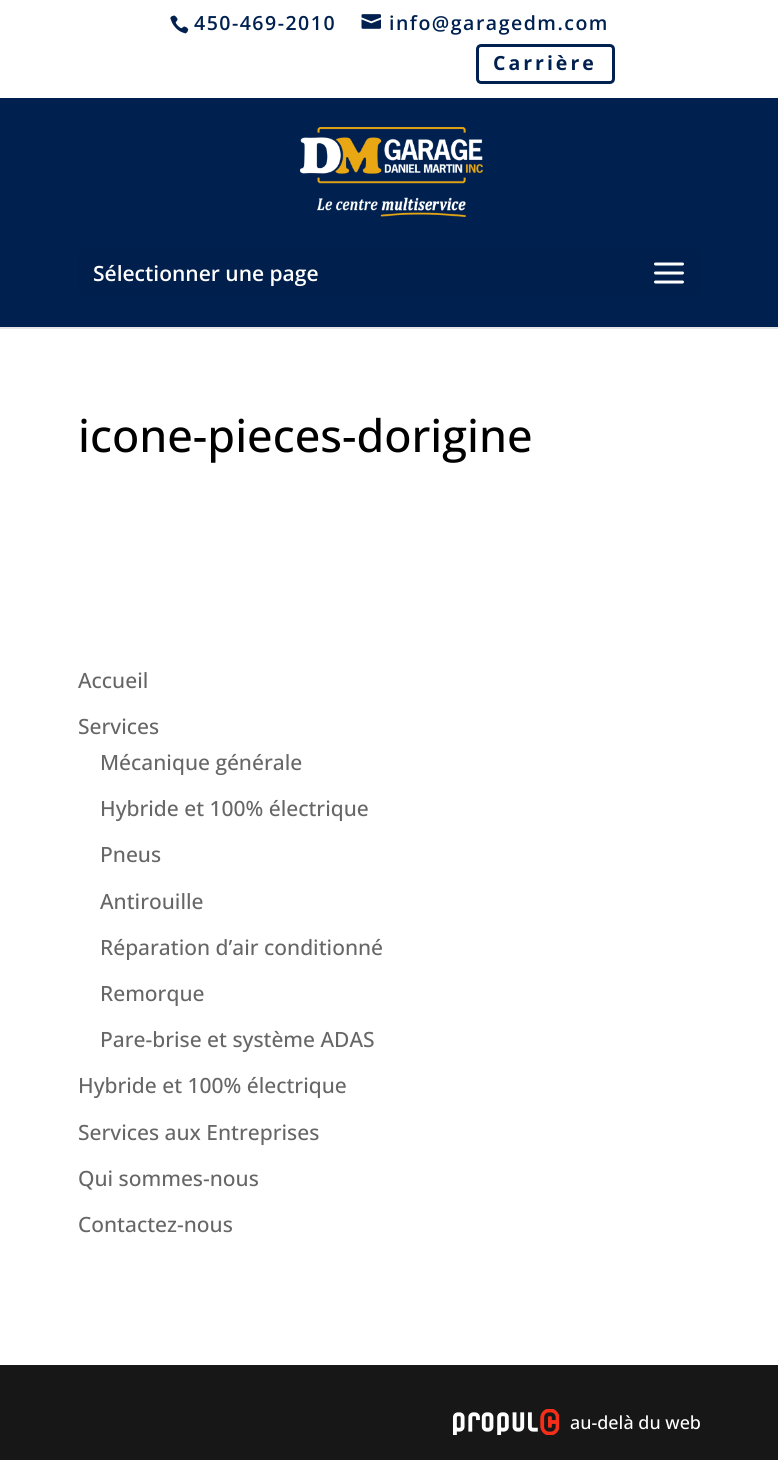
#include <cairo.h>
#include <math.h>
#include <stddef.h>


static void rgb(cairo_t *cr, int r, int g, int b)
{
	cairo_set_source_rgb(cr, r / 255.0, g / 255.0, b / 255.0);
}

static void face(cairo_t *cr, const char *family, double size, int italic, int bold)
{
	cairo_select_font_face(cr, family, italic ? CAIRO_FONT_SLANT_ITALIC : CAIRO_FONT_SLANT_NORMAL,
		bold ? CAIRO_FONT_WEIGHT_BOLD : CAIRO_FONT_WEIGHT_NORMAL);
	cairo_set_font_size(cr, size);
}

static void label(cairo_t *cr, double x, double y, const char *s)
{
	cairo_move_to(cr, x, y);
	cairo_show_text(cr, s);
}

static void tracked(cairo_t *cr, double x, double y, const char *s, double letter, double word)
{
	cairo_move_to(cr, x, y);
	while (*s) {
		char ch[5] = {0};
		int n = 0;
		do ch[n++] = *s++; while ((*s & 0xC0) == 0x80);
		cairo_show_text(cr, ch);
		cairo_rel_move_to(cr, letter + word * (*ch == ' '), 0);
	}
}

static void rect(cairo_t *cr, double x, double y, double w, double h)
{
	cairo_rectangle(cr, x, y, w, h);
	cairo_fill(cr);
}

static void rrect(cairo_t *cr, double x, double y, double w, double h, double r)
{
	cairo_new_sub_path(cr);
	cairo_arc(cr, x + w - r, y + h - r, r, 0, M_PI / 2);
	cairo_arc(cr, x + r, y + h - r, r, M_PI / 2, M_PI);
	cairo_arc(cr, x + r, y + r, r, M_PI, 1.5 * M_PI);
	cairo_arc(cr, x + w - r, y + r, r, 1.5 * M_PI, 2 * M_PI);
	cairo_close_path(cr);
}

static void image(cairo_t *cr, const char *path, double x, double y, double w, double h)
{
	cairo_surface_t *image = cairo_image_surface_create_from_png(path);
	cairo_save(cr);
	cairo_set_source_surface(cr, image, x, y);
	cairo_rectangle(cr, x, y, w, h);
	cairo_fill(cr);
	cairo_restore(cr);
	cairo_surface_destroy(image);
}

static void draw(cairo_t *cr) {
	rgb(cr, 255, 255, 255);
	cairo_paint(cr);
	image(cr, "image0.png", 170, 15, 19, 19);
	face(cr, "Open Sans SemiBold", 19.5, 0, 0);
	rgb(cr, 0, 33, 80);
	tracked(cr, 194, 30, "450-469-2010", 1.5, 0);
	image(cr, "image1.png", 361, 14, 20, 15);
	tracked(cr, 389, 30, "info@garagedm.com", 1.5, 0);
	rrect(cr, 477.5, 45.5, 136, 37, 3.5);
	cairo_set_line_width(cr, 3);
	cairo_stroke(cr);
	face(cr, "Open Sans", 19.5, 0, 1);
	tracked(cr, 493, 70, "Carrière", 3, 0);
	rgb(cr, 230, 230, 230);
	cairo_new_path(cr);
	cairo_move_to(cr, 0, 327);
	cairo_line_to(cr, 0, 329);
	cairo_line_to(cr, 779, 329);
	cairo_line_to(cr, 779, 99);
	cairo_line_to(cr, 778, 99);
	cairo_line_to(cr, 778, 327);
	cairo_close_path(cr);
	cairo_fill(cr);
	rgb(cr, 0, 33, 80);
	rect(cr, 0, 98, 778, 229);
	image(cr, "image2.png", 300, 127, 183, 90);
	rgb(cr, 0, 31, 76);
	rrect(cr, 78, 248, 623, 49, 8);
	cairo_fill(cr);
	face(cr, "Open Sans SemiBold", 21, 0, 0);
	rgb(cr, 255, 255, 255);
	label(cr, 93, 281, "Sélectionner une page");
	image(cr, "image3.png", 654, 262, 30, 22);
	face(cr, "Open Sans Medium", 45, 0, 0);
	rgb(cr, 0, 0, 0);
	label(cr, 78, 452, "icone-pieces-dorigine");
	face(cr, "Open Sans Medium", 21, 0, 0);
	rgb(cr, 102, 102, 102);
	label(cr, 78, 688, "Accueil");
	label(cr, 78, 734, "Services");
	label(cr, 100, 770, "Mécanique générale");
	label(cr, 100, 816, "Hybride et 100% électrique");
	label(cr, 100, 862, "Pneus");
	label(cr, 100, 909, "Antirouille");
	label(cr, 100, 955, "Réparation d’air conditionné");
	label(cr, 100, 1001, "Remorque");
	label(cr, 100, 1047, "Pare-brise et système ADAS");
	label(cr, 78, 1093, "Hybride et 100% électrique");
	label(cr, 78, 1140, "Services aux Entreprises");
	label(cr, 78, 1186, "Qui sommes-nous");
	label(cr, 78, 1232, "Contactez-nous");
	rgb(cr, 23, 23, 23);
	rect(cr, 0, 1365, 778, 95);
	image(cr, "image4.png", 453, 1409, 106, 26);
	face(cr, "Open Sans Medium", 18, 0, 0);
	rgb(cr, 255, 255, 255);
	label(cr, 570, 1429, "au-delà du web");
}

int main(void) {
	cairo_surface_t *surface = cairo_image_surface_create(CAIRO_FORMAT_RGB24, 778, 1460);
	cairo_t *cr = cairo_create(surface);
	cairo_font_options_t *options = cairo_font_options_create();
	cairo_font_options_set_hint_metrics(options, CAIRO_HINT_METRICS_OFF);
	cairo_font_options_set_hint_style(options, CAIRO_HINT_STYLE_NONE);
	cairo_set_font_options(cr, options);
	cairo_set_miter_limit(cr, 4);
	draw(cr);
	cairo_surface_write_to_png(surface, "render.png");
	cairo_font_options_destroy(options);
	cairo_destroy(cr);
	cairo_surface_destroy(surface);
	return 0;
}
